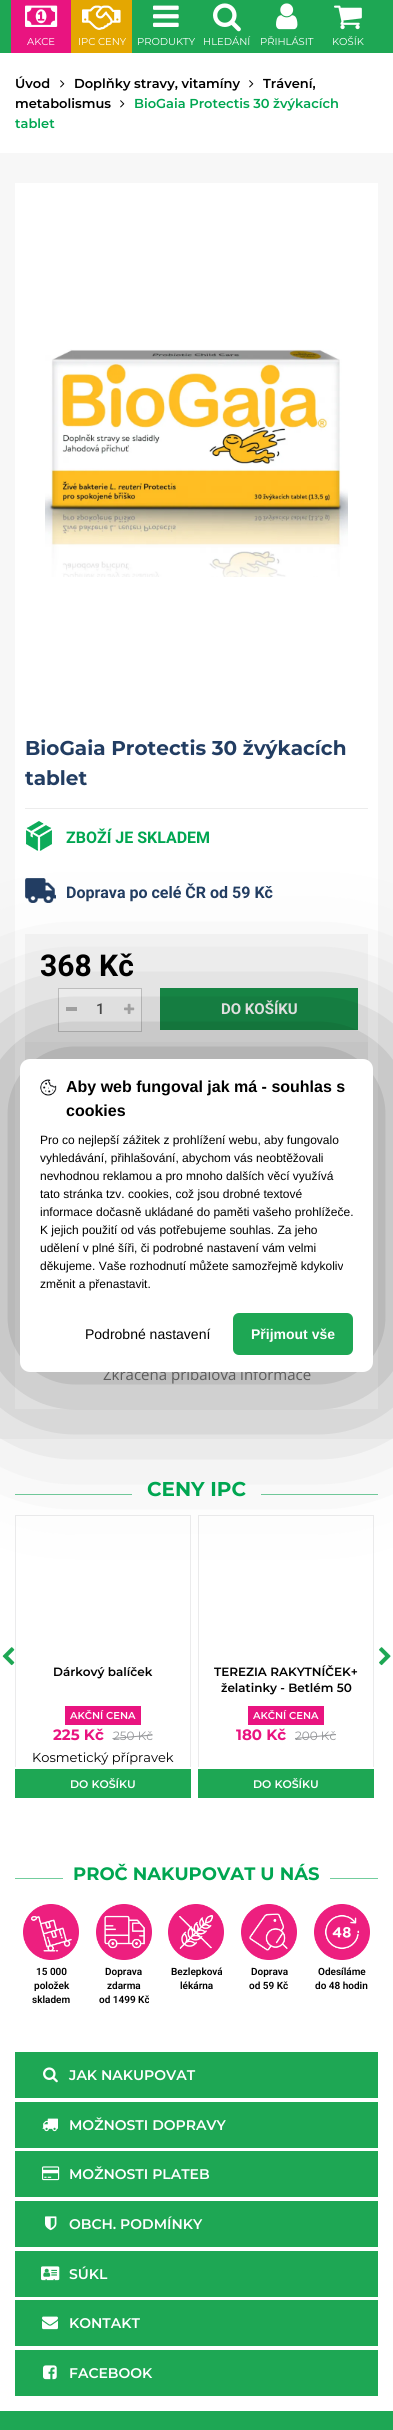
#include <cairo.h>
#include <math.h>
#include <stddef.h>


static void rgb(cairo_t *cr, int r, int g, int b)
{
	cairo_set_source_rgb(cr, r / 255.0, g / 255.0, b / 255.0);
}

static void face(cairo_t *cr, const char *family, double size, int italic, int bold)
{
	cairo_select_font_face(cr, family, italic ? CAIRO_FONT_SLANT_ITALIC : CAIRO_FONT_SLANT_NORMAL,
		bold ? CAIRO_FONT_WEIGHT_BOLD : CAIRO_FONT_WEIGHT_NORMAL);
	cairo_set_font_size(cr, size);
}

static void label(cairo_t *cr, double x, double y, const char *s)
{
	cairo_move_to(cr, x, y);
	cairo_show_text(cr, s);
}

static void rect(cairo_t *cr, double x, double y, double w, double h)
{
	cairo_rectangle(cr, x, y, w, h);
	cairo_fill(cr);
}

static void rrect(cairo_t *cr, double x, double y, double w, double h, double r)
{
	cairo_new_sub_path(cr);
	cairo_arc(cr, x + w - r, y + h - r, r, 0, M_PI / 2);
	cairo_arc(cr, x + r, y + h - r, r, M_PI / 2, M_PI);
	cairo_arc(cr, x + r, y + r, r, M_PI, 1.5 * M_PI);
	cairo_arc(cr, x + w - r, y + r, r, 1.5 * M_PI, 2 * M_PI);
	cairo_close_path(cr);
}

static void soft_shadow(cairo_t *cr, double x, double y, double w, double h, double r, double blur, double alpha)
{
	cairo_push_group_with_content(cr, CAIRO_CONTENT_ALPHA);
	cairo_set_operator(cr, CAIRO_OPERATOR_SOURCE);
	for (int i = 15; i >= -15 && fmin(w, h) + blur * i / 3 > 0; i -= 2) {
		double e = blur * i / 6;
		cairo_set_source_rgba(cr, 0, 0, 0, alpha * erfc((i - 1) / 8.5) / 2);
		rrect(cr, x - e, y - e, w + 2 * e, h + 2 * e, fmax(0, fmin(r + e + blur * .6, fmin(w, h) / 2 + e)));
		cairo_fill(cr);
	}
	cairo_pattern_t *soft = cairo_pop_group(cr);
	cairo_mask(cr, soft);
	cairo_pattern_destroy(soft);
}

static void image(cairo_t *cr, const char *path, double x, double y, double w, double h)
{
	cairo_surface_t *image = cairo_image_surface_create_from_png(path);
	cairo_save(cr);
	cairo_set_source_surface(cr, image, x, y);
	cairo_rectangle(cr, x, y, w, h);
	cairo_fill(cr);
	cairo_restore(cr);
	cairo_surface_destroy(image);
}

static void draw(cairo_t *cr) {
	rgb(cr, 255, 255, 255);
	cairo_paint(cr);
	rgb(cr, 30, 167, 84);
	rect(cr, 0, 0, 393, 53);
	rgb(cr, 233, 20, 128);
	rect(cr, 11, 0, 60, 53);
	image(cr, "image0.png", 25, 5, 33, 22);
	face(cr, "Montserrat", 10, 0, 0);
	rgb(cr, 255, 255, 255);
	label(cr, 27, 45, "AKCE");
	rgb(cr, 228, 167, 1);
	rect(cr, 71, 0, 61, 53);
	image(cr, "image1.png", 82, 5, 39, 25);
	rgb(cr, 255, 255, 255);
	label(cr, 78, 45, "IPC CENY");
	image(cr, "image2.png", 153, 5, 26, 22);
	label(cr, 137, 45, "PRODUKTY");
	image(cr, "image3.png", 213, 3, 28, 29);
	label(cr, 203, 45, "HLEDÁNÍ");
	image(cr, "image4.png", 276, 3, 22, 27);
	label(cr, 260, 45, "PŘIHLÁSIT");
	image(cr, "image5.png", 334, 5, 28, 25);
	label(cr, 332, 45, "KOŠÍK");
	face(cr, "Montserrat SemiBold", 13, 0, 0);
	rgb(cr, 0, 0, 0);
	label(cr, 15, 88, "Úvod");
	image(cr, "image6.png", 60, 80, 5, 8);
	label(cr, 74, 88, "Doplňky stravy, vitamíny");
	image(cr, "image6.png", 249, 80, 5, 8);
	label(cr, 263, 88, "Trávení,");
	label(cr, 15, 108, "metabolismus");
	image(cr, "image6.png", 120, 100, 5, 8);
	rgb(cr, 0, 166, 81);
	label(cr, 134, 108, "BioGaia Protectis 30 žvýkacích");
	label(cr, 15, 128, "tablet");
	rgb(cr, 247, 247, 247);
	rect(cr, 0, 153, 393, 1286);
	rgb(cr, 255, 255, 255);
	rect(cr, 15, 183, 363, 1226);
	image(cr, "image7.png", 45, 349, 303, 228);
	rgb(cr, 236, 236, 236);
	rect(cr, 25, 808, 343, 1);
	face(cr, "Montserrat", 20, 0, 1);
	rgb(cr, 34, 61, 98);
	label(cr, 25, 755, "BioGaia Protectis 30 žvýkacích");
	label(cr, 25, 785, "tablet");
	image(cr, "image8.png", 26, 821, 26, 30);
	face(cr, "Roboto", 16, 0, 1);
	rgb(cr, 0, 166, 81);
	label(cr, 66, 843, "ZBOŽÍ JE SKLADEM");
	image(cr, "image9.png", 25, 878, 31, 25);
	rgb(cr, 34, 61, 98);
	label(cr, 66, 898, "Doprava po celé ČR od 59 Kč");
	rgb(cr, 247, 247, 247);
	rect(cr, 25, 934, 343, 108);
	face(cr, "Roboto", 30, 0, 1);
	rgb(cr, 0, 0, 0);
	label(cr, 40, 976, "368 Kč");
	rgb(cr, 255, 255, 255);
	cairo_rectangle(cr, 58.5, 988.5, 83, 43);
	cairo_fill_preserve(cr);
	rgb(cr, 204, 204, 204);
	cairo_set_line_width(cr, 1);
	cairo_stroke(cr);
	rgb(cr, 182, 182, 182);
	rect(cr, 66, 1007, 11, 4);
	face(cr, "Roboto Medium", 15, 0, 0);
	rgb(cr, 80, 80, 80);
	label(cr, 96, 1014, "1");
	image(cr, "image10.png", 124, 1003, 11, 11);
	rgb(cr, 24, 143, 74);
	rect(cr, 160, 988, 198, 42);
	face(cr, "Roboto", 15, 0, 1);
	rgb(cr, 255, 255, 255);
	label(cr, 221, 1014, "DO KOŠÍKU");
	rgb(cr, 240, 240, 240);
	rect(cr, 25, 1042, 343, 19);
	face(cr, "Open Sans", 15, 0, 0);
	rgb(cr, 121, 121, 121);
	label(cr, 103, 1380, "Zkrácená příbalová informace");
	rgb(cr, 115, 205, 157);
	rect(cr, 15, 1494, 363, 1);
	rgb(cr, 255, 255, 255);
	rect(cr, 132, 1494, 129, 1);
	rgb(cr, 235, 235, 236);
	rect(cr, 15, 1515, 176, 1);
	rect(cr, 190, 1515, 1, 252);
	rect(cr, 15, 1515, 1, 252);
	rect(cr, 198, 1515, 176, 1);
	rect(cr, 373, 1515, 1, 252);
	rect(cr, 198, 1515, 1, 252);
	rgb(cr, 0, 0, 0);
	soft_shadow(cr, 20, 1059, 353, 313, 10, 75, 0.5);
	rgb(cr, 255, 255, 255);
	rrect(cr, 20, 1059, 353, 313, 10);
	cairo_fill(cr);
	image(cr, "image11.png", 40, 1079, 17, 17);
	face(cr, "Liberation Sans", 16, 0, 1);
	rgb(cr, 0, 0, 0);
	label(cr, 66, 1092, "Aby web fungoval jak má - souhlas s");
	label(cr, 66, 1116, "cookies");
	face(cr, "Liberation Sans", 12, 0, 0);
	label(cr, 40, 1144, "Pro co nejlepší zážitek z prohlížení webu, aby fungovalo");
	label(cr, 40, 1162, "vyhledávání, přihlašování, abychom vás neobtěžovali");
	label(cr, 40, 1180, "nevhodnou reklamou a pro mnoho dalších věcí využívá");
	label(cr, 40, 1198, "tato stránka tzv. cookies, což jsou drobné textové");
	label(cr, 40, 1216, "informace dočasně ukládané do paměti vašeho prohlížeče.");
	label(cr, 40, 1234, "K jejich použití od vás potřebujeme souhlas. Za jeho");
	label(cr, 40, 1252, "udělení v plné šíři, či podrobné nastavení vám velmi");
	label(cr, 40, 1270, "děkujeme. Vaše rozhodnutí můžete samozřejmě kdykoliv");
	label(cr, 40, 1288, "změnit a přenastavit.");
	face(cr, "Liberation Sans", 14, 0, 0);
	label(cr, 85, 1339, "Podrobné nastavení");
	rgb(cr, 30, 167, 84);
	rrect(cr, 234, 1314, 118, 40, 5);
	cairo_fill_preserve(cr);
	cairo_set_line_width(cr, 2);
	cairo_stroke(cr);
	face(cr, "Liberation Sans", 14, 0, 1);
	rgb(cr, 255, 255, 255);
	label(cr, 251, 1339, "Přijmout vše");
	face(cr, "Montserrat", 20, 0, 1);
	rgb(cr, 0, 166, 81);
	label(cr, 147, 1496, "CENY IPC");
	image(cr, "image12.png", 2, 1647, 13, 19);
	image(cr, "image13.png", 379, 1647, 12, 19);
	face(cr, "Montserrat SemiBold", 12, 0, 0);
	rgb(cr, 0, 0, 0);
	label(cr, 53, 1676, "Dárkový balíček");
	rgb(cr, 233, 20, 128);
	rect(cr, 65, 1706, 76, 19);
	face(cr, "Montserrat SemiBold", 10, 0, 0);
	rgb(cr, 255, 255, 255);
	label(cr, 70, 1719, "AKČNÍ CENA");
	face(cr, "Montserrat", 15, 0, 1);
	rgb(cr, 233, 20, 128);
	label(cr, 53, 1740, "225 Kč");
	face(cr, "Montserrat", 12, 0, 0);
	rgb(cr, 147, 149, 152);
	label(cr, 113, 1740, "250 Kč");
	cairo_new_path(cr);
	cairo_move_to(cr, 112.5, 1738);
	cairo_line_to(cr, 152.5, 1734.5);
	cairo_line_to(cr, 152.5, 1735.5);
	cairo_line_to(cr, 112.5, 1739);
	cairo_close_path(cr);
	cairo_fill(cr);
	face(cr, "Montserrat", 13, 0, 0);
	rgb(cr, 0, 0, 0);
	label(cr, 32, 1762, "Kosmetický přípravek");
	rgb(cr, 30, 167, 84);
	rect(cr, 15, 1769, 176, 29);
	face(cr, "Montserrat SemiBold", 11, 0, 0);
	rgb(cr, 255, 255, 255);
	label(cr, 70, 1788, "DO KOŠÍKU");
	face(cr, "Montserrat SemiBold", 12, 0, 0);
	rgb(cr, 0, 0, 0);
	label(cr, 214, 1676, "TEREZIA RAKYTNÍČEK+");
	label(cr, 221, 1692, "želatinky - Betlém 50");
	rgb(cr, 233, 20, 128);
	rect(cr, 248, 1706, 76, 19);
	face(cr, "Montserrat SemiBold", 10, 0, 0);
	rgb(cr, 255, 255, 255);
	label(cr, 253, 1719, "AKČNÍ CENA");
	face(cr, "Montserrat", 15, 0, 1);
	rgb(cr, 233, 20, 128);
	label(cr, 236, 1740, "180 Kč");
	face(cr, "Montserrat", 12, 0, 0);
	rgb(cr, 147, 149, 152);
	label(cr, 295, 1740, "200 Kč");
	cairo_new_path(cr);
	cairo_move_to(cr, 295, 1738);
	cairo_line_to(cr, 336, 1734);
	cairo_line_to(cr, 336, 1735);
	cairo_line_to(cr, 295, 1739);
	cairo_close_path(cr);
	cairo_fill(cr);
	rgb(cr, 30, 167, 84);
	rect(cr, 198, 1769, 176, 29);
	face(cr, "Montserrat SemiBold", 11, 0, 0);
	rgb(cr, 255, 255, 255);
	label(cr, 253, 1788, "DO KOŠÍKU");
	rgb(cr, 115, 205, 157);
	rect(cr, 15, 1878, 363, 1);
	rgb(cr, 255, 255, 255);
	rect(cr, 63, 1878, 267, 1);
	face(cr, "Montserrat", 18, 0, 1);
	rgb(cr, 0, 166, 81);
	label(cr, 73, 1880, "PROČ NAKUPOVAT U NÁS");
	image(cr, "image14.png", 23, 1904, 56, 56);
	face(cr, "Roboto SemiBold", 10, 0, 0);
	rgb(cr, 0, 0, 0);
	label(cr, 36, 1975, "15 000");
	label(cr, 34, 1989, "položek");
	label(cr, 32, 2003, "skladem");
	image(cr, "image15.png", 96, 1904, 56, 56);
	label(cr, 105, 1975, "Doprava");
	label(cr, 107, 1989, "zdarma");
	label(cr, 99, 2003, "od 1499 Kč");
	image(cr, "image16.png", 168, 1904, 56, 56);
	label(cr, 171, 1975, "Bezlepková");
	label(cr, 180, 1989, "lékárna");
	image(cr, "image17.png", 241, 1904, 56, 56);
	label(cr, 251, 1975, "Doprava");
	label(cr, 249, 1989, "od 59 Kč");
	image(cr, "image18.png", 314, 1904, 56, 56);
	label(cr, 318, 1975, "Odesíláme");
	label(cr, 315, 1989, "do 48 hodin");
	rgb(cr, 30, 167, 84);
	rect(cr, 15, 2052, 363, 46);
	image(cr, "image19.png", 43, 2067, 15, 16);
	face(cr, "Montserrat SemiBold", 14, 0, 0);
	rgb(cr, 255, 255, 255);
	label(cr, 69, 2080, "JAK NAKUPOVAT");
	rgb(cr, 30, 167, 84);
	rect(cr, 15, 2102, 363, 46);
	image(cr, "image20.png", 42, 2118, 16, 14);
	rgb(cr, 255, 255, 255);
	label(cr, 69, 2130, "MOŽNOSTI DOPRAVY");
	rgb(cr, 30, 167, 84);
	rect(cr, 15, 2151, 363, 46);
	image(cr, "image21.png", 42, 2166, 18, 15);
	rgb(cr, 255, 255, 255);
	label(cr, 69, 2179, "MOŽNOSTI PLATEB");
	rgb(cr, 30, 167, 84);
	rect(cr, 15, 2201, 363, 46);
	image(cr, "image22.png", 45, 2216, 12, 15);
	rgb(cr, 255, 255, 255);
	label(cr, 69, 2229, "OBCH. PODMÍNKY");
	rgb(cr, 30, 167, 84);
	rect(cr, 15, 2251, 363, 46);
	image(cr, "image23.png", 41, 2266, 19, 15);
	rgb(cr, 255, 255, 255);
	label(cr, 69, 2279, "SÚKL");
	rgb(cr, 30, 167, 84);
	rect(cr, 15, 2300, 363, 46);
	image(cr, "image24.png", 42, 2316, 16, 14);
	rgb(cr, 255, 255, 255);
	label(cr, 69, 2328, "KONTAKT");
	rgb(cr, 30, 167, 84);
	rect(cr, 15, 2350, 363, 46);
	image(cr, "image25.png", 43, 2365, 14, 15);
	rgb(cr, 255, 255, 255);
	label(cr, 69, 2378, "FACEBOOK");
	rgb(cr, 30, 167, 84);
	rect(cr, 0, 2411, 393, 19);
}

int main(void) {
	cairo_surface_t *surface = cairo_image_surface_create(CAIRO_FORMAT_RGB24, 393, 2430);
	cairo_t *cr = cairo_create(surface);
	cairo_font_options_t *options = cairo_font_options_create();
	cairo_font_options_set_hint_metrics(options, CAIRO_HINT_METRICS_OFF);
	cairo_font_options_set_hint_style(options, CAIRO_HINT_STYLE_NONE);
	cairo_set_font_options(cr, options);
	cairo_set_miter_limit(cr, 4);
	draw(cr);
	cairo_surface_write_to_png(surface, "render.png");
	cairo_font_options_destroy(options);
	cairo_destroy(cr);
	cairo_surface_destroy(surface);
	return 0;
}
